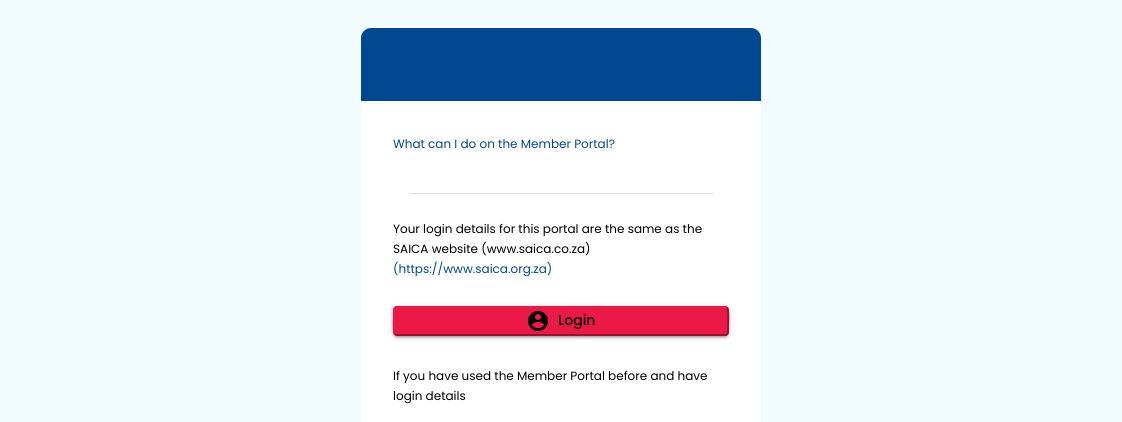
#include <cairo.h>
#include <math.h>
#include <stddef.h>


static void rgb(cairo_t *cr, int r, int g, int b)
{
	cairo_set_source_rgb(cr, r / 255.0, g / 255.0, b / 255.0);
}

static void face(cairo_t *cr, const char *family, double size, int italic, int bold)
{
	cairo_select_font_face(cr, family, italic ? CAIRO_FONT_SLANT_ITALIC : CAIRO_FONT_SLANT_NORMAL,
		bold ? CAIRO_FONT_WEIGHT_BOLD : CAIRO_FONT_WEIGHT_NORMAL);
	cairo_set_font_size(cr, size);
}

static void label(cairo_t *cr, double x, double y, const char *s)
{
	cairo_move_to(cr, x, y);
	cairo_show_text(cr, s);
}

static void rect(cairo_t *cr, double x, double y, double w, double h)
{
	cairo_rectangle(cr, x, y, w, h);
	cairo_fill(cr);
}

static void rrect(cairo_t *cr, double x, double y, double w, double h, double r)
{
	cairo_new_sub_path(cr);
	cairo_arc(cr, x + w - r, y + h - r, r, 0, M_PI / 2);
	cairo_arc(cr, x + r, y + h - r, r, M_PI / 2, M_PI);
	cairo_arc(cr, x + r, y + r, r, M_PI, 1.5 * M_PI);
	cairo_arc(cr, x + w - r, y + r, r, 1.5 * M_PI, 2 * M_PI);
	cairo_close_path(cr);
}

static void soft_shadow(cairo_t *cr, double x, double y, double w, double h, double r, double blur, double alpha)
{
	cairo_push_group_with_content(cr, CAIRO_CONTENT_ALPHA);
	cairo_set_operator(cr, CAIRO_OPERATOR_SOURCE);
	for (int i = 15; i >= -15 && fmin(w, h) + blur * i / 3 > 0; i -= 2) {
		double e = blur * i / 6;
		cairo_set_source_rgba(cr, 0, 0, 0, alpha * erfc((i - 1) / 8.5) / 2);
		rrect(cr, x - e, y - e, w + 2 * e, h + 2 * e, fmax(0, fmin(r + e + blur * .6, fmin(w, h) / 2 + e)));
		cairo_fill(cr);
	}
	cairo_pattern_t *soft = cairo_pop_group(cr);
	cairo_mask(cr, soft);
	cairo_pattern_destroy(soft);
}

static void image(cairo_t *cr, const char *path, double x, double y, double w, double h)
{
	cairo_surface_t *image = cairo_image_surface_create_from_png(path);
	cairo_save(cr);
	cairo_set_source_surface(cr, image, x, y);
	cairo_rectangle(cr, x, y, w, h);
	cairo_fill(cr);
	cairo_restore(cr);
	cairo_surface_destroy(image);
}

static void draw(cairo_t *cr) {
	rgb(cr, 242, 251, 254);
	cairo_paint(cr);
	rgb(cr, 0, 73, 144);
	cairo_new_path(cr);
	cairo_move_to(cr, 371, 28);
	cairo_line_to(cr, 751, 28);
	cairo_curve_to(cr, 756.5, 28, 761, 32.5, 761, 38);
	cairo_line_to(cr, 761, 101);
	cairo_line_to(cr, 361, 101);
	cairo_line_to(cr, 361, 38);
	cairo_curve_to(cr, 361, 32.5, 365.5, 28, 371, 28);
	cairo_close_path(cr);
	cairo_fill(cr);
	rgb(cr, 255, 255, 255);
	rect(cr, 361, 101, 400, 321);
	face(cr, "Poppins", 12, 0, 0);
	rgb(cr, 0, 73, 144);
	label(cr, 393, 148, "What can I do on the Member Portal?");
	rgb(cr, 224, 224, 224);
	rect(cr, 409, 193, 304, 1);
	rgb(cr, 0, 0, 0);
	label(cr, 393, 233, "Your login details for this portal are the same as the");
	label(cr, 393, 253, "SAICA website (www.saica.co.za)");
	rgb(cr, 0, 73, 144);
	label(cr, 393, 273, "(https://www.saica.org.za)");
	rgb(cr, 0, 0, 0);
	soft_shadow(cr, 395, 311, 332, 26, 2, 0.5, 0.12);
	soft_shadow(cr, 393, 308, 336, 30, 4, 1, 0.14);
	soft_shadow(cr, 393, 307, 336, 30, 4, 2.5, 0.2);
	rgb(cr, 234, 25, 70);
	rrect(cr, 393, 306, 336, 30, 4);
	cairo_fill(cr);
	cairo_new_path(cr);
	cairo_move_to(cr, 727, 308);
	cairo_curve_to(cr, 729, 310, 728, 325, 728, 328.5);
	cairo_curve_to(cr, 728, 330.5, 728.5, 335, 725, 335);
	cairo_line_to(cr, 396.5, 335);
	cairo_line_to(cr, 395, 334);
	rgb(cr, 156, 17, 47);
	cairo_stroke(cr);
	cairo_new_path(cr);
	cairo_move_to(cr, 395, 334);
	cairo_curve_to(cr, 393, 332, 394, 317, 394, 313.5);
	cairo_curve_to(cr, 394, 311.5, 393.5, 307, 397, 307);
	cairo_line_to(cr, 725.5, 307);
	cairo_line_to(cr, 727, 308);
	rgb(cr, 234, 25, 70);
	cairo_stroke(cr);
	image(cr, "image0.png", 528, 311, 20, 20);
	face(cr, "Poppins Medium", 14, 0, 0);
	rgb(cr, 0, 0, 0);
	label(cr, 558, 325, "Login");
	face(cr, "Poppins", 12, 0, 0);
	label(cr, 393, 380, "If you have used the Member Portal before and have");
	label(cr, 393, 400, "login details");
}

int main(void) {
	cairo_surface_t *surface = cairo_image_surface_create(CAIRO_FORMAT_RGB24, 1122, 422);
	cairo_t *cr = cairo_create(surface);
	cairo_font_options_t *options = cairo_font_options_create();
	cairo_font_options_set_hint_metrics(options, CAIRO_HINT_METRICS_OFF);
	cairo_font_options_set_hint_style(options, CAIRO_HINT_STYLE_NONE);
	cairo_set_font_options(cr, options);
	cairo_set_miter_limit(cr, 4);
	draw(cr);
	cairo_surface_write_to_png(surface, "render.png");
	cairo_font_options_destroy(options);
	cairo_destroy(cr);
	cairo_surface_destroy(surface);
	return 0;
}
